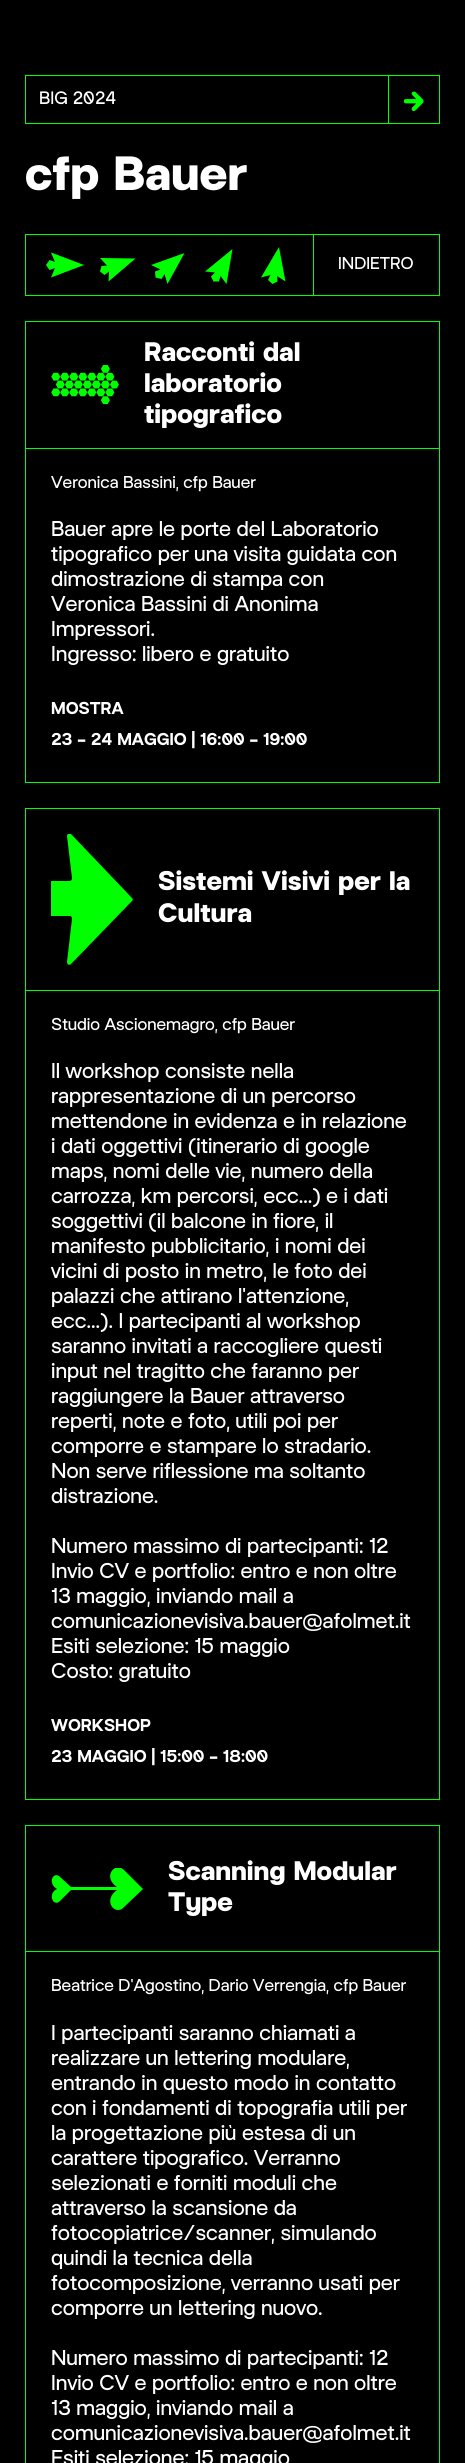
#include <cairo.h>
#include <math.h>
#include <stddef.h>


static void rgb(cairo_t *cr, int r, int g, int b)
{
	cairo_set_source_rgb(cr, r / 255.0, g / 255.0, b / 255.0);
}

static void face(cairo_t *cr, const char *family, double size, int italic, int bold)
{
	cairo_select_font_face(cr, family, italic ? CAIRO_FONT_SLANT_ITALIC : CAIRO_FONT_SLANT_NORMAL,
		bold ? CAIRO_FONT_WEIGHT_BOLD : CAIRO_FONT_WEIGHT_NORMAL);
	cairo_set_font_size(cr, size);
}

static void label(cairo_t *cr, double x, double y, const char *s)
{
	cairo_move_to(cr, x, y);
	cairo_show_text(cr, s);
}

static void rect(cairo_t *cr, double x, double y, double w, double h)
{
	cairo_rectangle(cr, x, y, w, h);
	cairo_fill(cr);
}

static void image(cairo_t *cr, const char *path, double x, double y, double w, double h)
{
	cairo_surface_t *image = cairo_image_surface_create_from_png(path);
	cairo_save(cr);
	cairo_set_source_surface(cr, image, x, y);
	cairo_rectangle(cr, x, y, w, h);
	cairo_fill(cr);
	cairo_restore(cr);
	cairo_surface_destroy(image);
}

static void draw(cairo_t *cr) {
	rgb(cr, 0, 0, 0);
	cairo_paint(cr);
	cairo_rectangle(cr, 25.5, 75.5, 414, 48);
	rgb(cr, 0, 255, 0);
	cairo_set_line_width(cr, 1);
	cairo_stroke(cr);
	rect(cr, 388, 76, 1, 47);
	face(cr, "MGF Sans", 21, 0, 0);
	rgb(cr, 255, 255, 255);
	label(cr, 39, 104, "BIG 2024");
	image(cr, "image0.png", 404, 91, 20, 20);
	face(cr, "MGF Sans", 56, 0, 1);
	label(cr, 25, 190, "cfp Bauer");
	cairo_rectangle(cr, 25.5, 234.5, 414, 61);
	rgb(cr, 0, 255, 0);
	cairo_stroke(cr);
	cairo_new_path(cr);
	cairo_move_to(cr, 84, 265);
	cairo_line_to(cr, 51, 252.5);
	cairo_line_to(cr, 55, 262);
	cairo_line_to(cr, 49.5, 260);
	cairo_line_to(cr, 46, 265);
	cairo_line_to(cr, 49.5, 270);
	cairo_line_to(cr, 55, 268);
	cairo_line_to(cr, 51, 277.5);
	cairo_close_path(cr);
	cairo_fill(cr);
	cairo_new_path(cr);
	cairo_move_to(cr, 135.5, 258.5);
	cairo_line_to(cr, 100, 258);
	cairo_line_to(cr, 107, 265.5);
	cairo_line_to(cr, 101.5, 266);
	cairo_line_to(cr, 100, 271.5);
	cairo_line_to(cr, 104.5, 275);
	cairo_line_to(cr, 109, 271.5);
	cairo_line_to(cr, 108.5, 281.5);
	cairo_close_path(cr);
	cairo_fill(cr);
	cairo_new_path(cr);
	cairo_move_to(cr, 184.5, 253);
	cairo_line_to(cr, 151, 265);
	cairo_line_to(cr, 160.5, 269.5);
	cairo_line_to(cr, 155, 271.5);
	cairo_line_to(cr, 155.5, 277.5);
	cairo_line_to(cr, 161.5, 279);
	cairo_line_to(cr, 164.5, 274);
	cairo_line_to(cr, 167.5, 284);
	cairo_close_path(cr);
	cairo_fill(cr);
	cairo_new_path(cr);
	cairo_move_to(cr, 232.5, 249);
	cairo_line_to(cr, 205, 271.5);
	cairo_line_to(cr, 215, 272.5);
	cairo_line_to(cr, 211, 276.5);
	cairo_line_to(cr, 213.5, 281.5);
	cairo_line_to(cr, 219, 281.5);
	cairo_line_to(cr, 220.5, 276);
	cairo_line_to(cr, 226.5, 284);
	cairo_close_path(cr);
	cairo_fill(cr);
	cairo_new_path(cr);
	cairo_move_to(cr, 279, 247);
	cairo_line_to(cr, 261, 277.5);
	cairo_line_to(cr, 270.5, 275);
	cairo_line_to(cr, 268, 280);
	cairo_line_to(cr, 272.5, 284);
	cairo_line_to(cr, 277.5, 281.5);
	cairo_line_to(cr, 277, 276);
	cairo_line_to(cr, 285.5, 281.5);
	cairo_close_path(cr);
	cairo_fill(cr);
	rect(cr, 313, 235, 1, 60);
	face(cr, "MGF Sans", 20, 0, 0);
	rgb(cr, 255, 255, 255);
	label(cr, 338, 269, "INDIETRO");
	cairo_rectangle(cr, 25.5, 321.5, 414, 461);
	rgb(cr, 0, 255, 0);
	cairo_stroke(cr);
	image(cr, "image1.png", 51, 365, 68, 40);
	face(cr, "MGF Sans", 31.25, 0, 1);
	rgb(cr, 255, 255, 255);
	label(cr, 144, 361, "Racconti dal");
	label(cr, 144, 392, "laboratorio");
	label(cr, 144, 423, "tipografico");
	rgb(cr, 0, 255, 0);
	rect(cr, 26, 448, 413, 1);
	face(cr, "MGF Sans", 20, 0, 0);
	rgb(cr, 255, 255, 255);
	label(cr, 51, 488, "Veronica Bassini, cfp Bauer");
	face(cr, "MGF Sans", 25, 0, 0);
	label(cr, 51, 536, "Bauer apre le porte del Laboratorio");
	label(cr, 51, 561, "tipografico per una visita guidata con");
	label(cr, 51, 586, "dimostrazione di stampa con");
	label(cr, 51, 611, "Veronica Bassini di Anonima");
	label(cr, 51, 636, "Impressori.");
	label(cr, 51, 661, "Ingresso: libero e gratuito");
	face(cr, "MGF Sans SemiBold", 20, 0, 0);
	label(cr, 51, 714, "MOSTRA");
	label(cr, 51, 745, "23 - 24 MAGGIO | 16:00 - 19:00");
	cairo_rectangle(cr, 25.5, 808.5, 414, 991);
	rgb(cr, 0, 255, 0);
	cairo_stroke(cr);
	cairo_save(cr);
	cairo_rectangle(cr, 51, 834, 82, 131);
	cairo_clip(cr);
	cairo_new_path(cr);
	cairo_move_to(cr, 132, 898);
	cairo_line_to(cr, 71, 834);
	cairo_curve_to(cr, 69, 833, 67, 834, 67, 836);
	cairo_line_to(cr, 72, 878);
	cairo_curve_to(cr, 72, 880, 71, 881, 69, 881);
	cairo_line_to(cr, 51, 881);
	cairo_line_to(cr, 51, 916);
	cairo_line_to(cr, 70, 916);
	cairo_curve_to(cr, 71, 916, 72, 917, 72, 919);
	cairo_line_to(cr, 67, 962);
	cairo_curve_to(cr, 67, 964, 69, 966, 71, 964);
	cairo_line_to(cr, 132, 901);
	cairo_curve_to(cr, 133, 900, 133, 899, 132, 898);
	cairo_close_path(cr);
	cairo_fill(cr);
	cairo_restore(cr);
	face(cr, "MGF Sans", 31.25, 0, 1);
	rgb(cr, 255, 255, 255);
	label(cr, 158, 890, "Sistemi Visivi per la");
	label(cr, 158, 922, "Cultura");
	rgb(cr, 0, 255, 0);
	rect(cr, 26, 990, 413, 1);
	face(cr, "MGF Sans", 20, 0, 0);
	rgb(cr, 255, 255, 255);
	label(cr, 51, 1030, "Studio Ascionemagro, cfp Bauer");
	face(cr, "MGF Sans", 25, 0, 0);
	label(cr, 51, 1078, "Il workshop consiste nella");
	label(cr, 51, 1103, "rappresentazione di un percorso");
	label(cr, 51, 1128, "mettendone in evidenza e in relazione");
	label(cr, 51, 1153, "i dati oggettivi (itinerario di google");
	label(cr, 51, 1178, "maps, nomi delle vie, numero della");
	label(cr, 51, 1203, "carrozza, km percorsi, ecc...) e i dati");
	label(cr, 51, 1228, "soggettivi (il balcone in fiore, il");
	label(cr, 51, 1253, "manifesto pubblicitario, i nomi dei");
	label(cr, 51, 1278, "vicini di posto in metro, le foto dei");
	label(cr, 51, 1303, "palazzi che attirano l'attenzione,");
	label(cr, 51, 1328, "ecc...). I partecipanti al workshop");
	label(cr, 51, 1353, "saranno invitati a raccogliere questi");
	label(cr, 51, 1378, "input nel tragitto che faranno per");
	label(cr, 51, 1403, "raggiungere la Bauer attraverso");
	label(cr, 51, 1428, "reperti, note e foto, utili poi per");
	label(cr, 51, 1453, "comporre e stampare lo stradario.");
	label(cr, 51, 1478, "Non serve riflessione ma soltanto");
	label(cr, 51, 1503, "distrazione.");
	label(cr, 51, 1553, "Numero massimo di partecipanti: 12");
	label(cr, 51, 1578, "Invio CV e portfolio: entro e non oltre");
	label(cr, 51, 1603, "13 maggio, inviando mail a");
	label(cr, 51, 1628, "comunicazionevisiva.bauer@afolmet.it");
	label(cr, 51, 1653, "Esiti selezione: 15 maggio");
	label(cr, 51, 1678, "Costo: gratuito");
	face(cr, "MGF Sans SemiBold", 20, 0, 0);
	label(cr, 51, 1731, "WORKSHOP");
	label(cr, 51, 1762, "23 MAGGIO | 15:00 - 18:00");
	cairo_rectangle(cr, 25.5, 1825.5, 414, 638);
	rgb(cr, 0, 255, 0);
	cairo_stroke(cr);
	cairo_save(cr);
	cairo_rectangle(cr, 51, 1868, 92, 42);
	cairo_clip(cr);
	cairo_new_path(cr);
	cairo_move_to(cr, 124, 1870);
	cairo_curve_to(cr, 115, 1861, 102, 1877, 117, 1887);
	cairo_line_to(cr, 71, 1887);
	cairo_line_to(cr, 59, 1876);
	cairo_curve_to(cr, 52, 1872, 48, 1884, 57, 1889);
	cairo_curve_to(cr, 48, 1893, 52, 1906, 59, 1902);
	cairo_line_to(cr, 71, 1890);
	cairo_line_to(cr, 117, 1890);
	cairo_curve_to(cr, 104, 1899, 112, 1914, 122, 1909);
	cairo_line_to(cr, 143, 1889);
	cairo_close_path(cr);
	cairo_fill(cr);
	cairo_restore(cr);
	face(cr, "MGF Sans", 31.25, 0, 1);
	rgb(cr, 255, 255, 255);
	label(cr, 168, 1880, "Scanning Modular");
	label(cr, 168, 1911, "Type");
	rgb(cr, 0, 255, 0);
	rect(cr, 26, 1951, 413, 1);
	face(cr, "MGF Sans", 20, 0, 0);
	rgb(cr, 255, 255, 255);
	label(cr, 51, 1991, "Beatrice D'Agostino, Dario Verrengia, cfp Bauer");
	face(cr, "MGF Sans", 25, 0, 0);
	label(cr, 51, 2040, "I partecipanti saranno chiamati a");
	label(cr, 51, 2065, "realizzare un lettering modulare,");
	label(cr, 51, 2090, "entrando in questo modo in contatto");
	label(cr, 51, 2115, "con i fondamenti di topografia utili per");
	label(cr, 51, 2140, "la progettazione più estesa di un");
	label(cr, 51, 2165, "carattere tipografico. Verranno");
	label(cr, 51, 2190, "selezionati e forniti moduli che");
	label(cr, 51, 2215, "attraverso la scansione da");
	label(cr, 51, 2240, "fotocopiatrice/scanner, simulando");
	label(cr, 51, 2265, "quindi la tecnica della");
	label(cr, 51, 2290, "fotocomposizione, verranno usati per");
	label(cr, 51, 2315, "comporre un lettering nuovo.");
	label(cr, 51, 2365, "Numero massimo di partecipanti: 12");
	label(cr, 51, 2390, "Invio CV e portfolio: entro e non oltre");
	label(cr, 51, 2415, "13 maggio, inviando mail a");
	label(cr, 51, 2440, "comunicazionevisiva.bauer@afolmet.it");
	label(cr, 51, 2465, "Esiti selezione: 15 maggio");
}

int main(void) {
	cairo_surface_t *surface = cairo_image_surface_create(CAIRO_FORMAT_RGB24, 465, 2463);
	cairo_t *cr = cairo_create(surface);
	cairo_font_options_t *options = cairo_font_options_create();
	cairo_font_options_set_hint_metrics(options, CAIRO_HINT_METRICS_OFF);
	cairo_font_options_set_hint_style(options, CAIRO_HINT_STYLE_NONE);
	cairo_set_font_options(cr, options);
	cairo_set_miter_limit(cr, 4);
	draw(cr);
	cairo_surface_write_to_png(surface, "render.png");
	cairo_font_options_destroy(options);
	cairo_destroy(cr);
	cairo_surface_destroy(surface);
	return 0;
}
